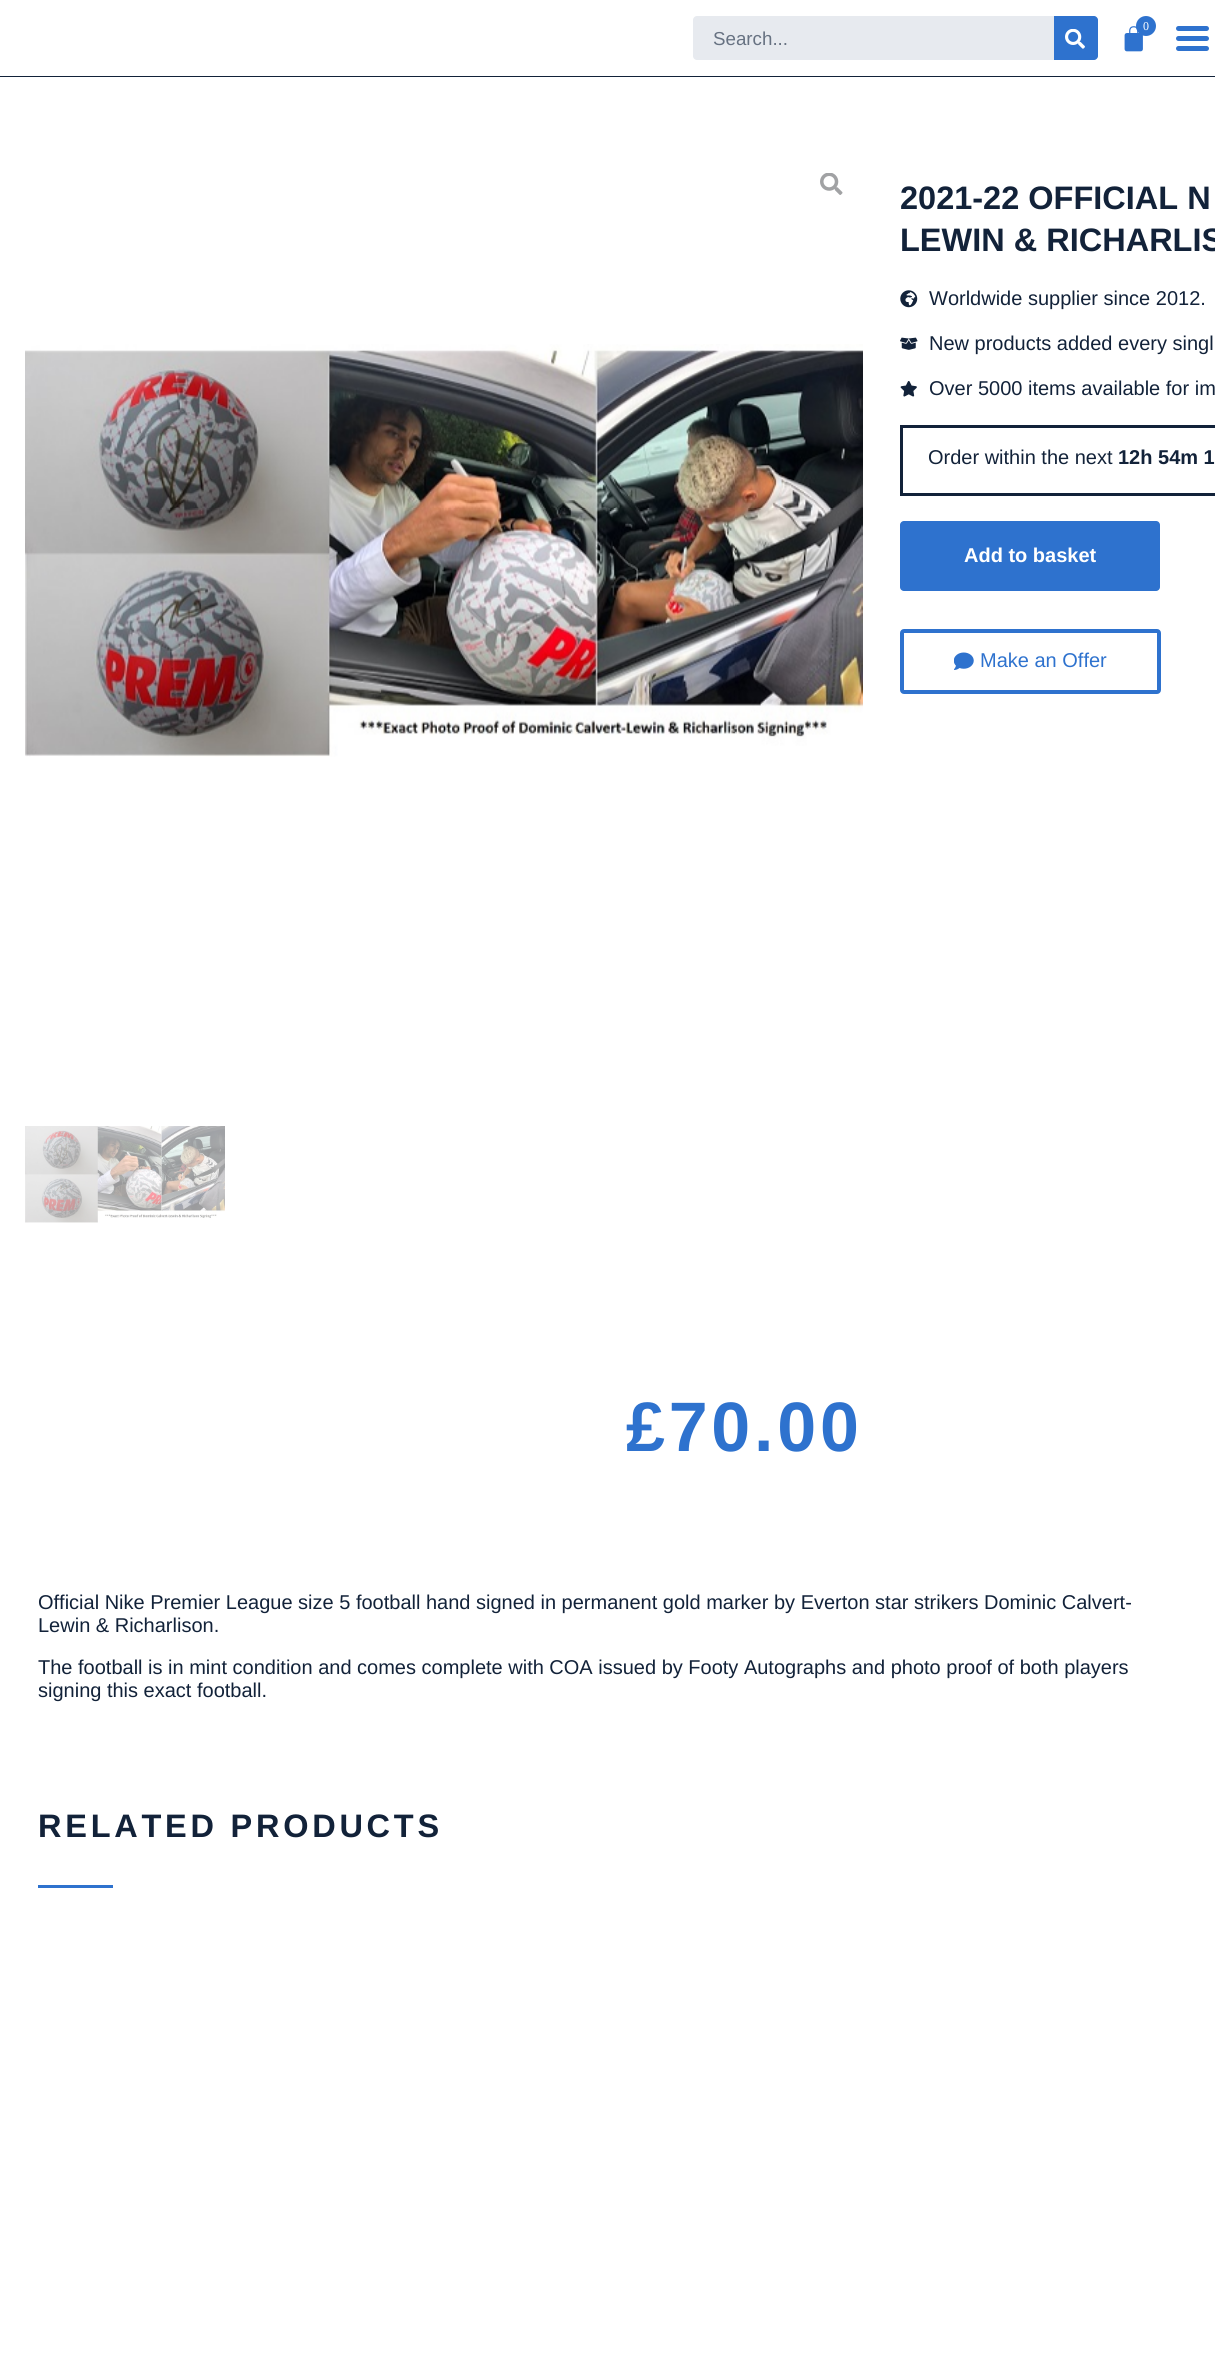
#include <cairo.h>
#include <math.h>
#include <stddef.h>


static void rgb(cairo_t *cr, int r, int g, int b)
{
	cairo_set_source_rgb(cr, r / 255.0, g / 255.0, b / 255.0);
}

static void face(cairo_t *cr, const char *family, double size, int italic, int bold)
{
	cairo_select_font_face(cr, family, italic ? CAIRO_FONT_SLANT_ITALIC : CAIRO_FONT_SLANT_NORMAL,
		bold ? CAIRO_FONT_WEIGHT_BOLD : CAIRO_FONT_WEIGHT_NORMAL);
	cairo_set_font_size(cr, size);
}

static void label(cairo_t *cr, double x, double y, const char *s)
{
	cairo_move_to(cr, x, y);
	cairo_show_text(cr, s);
}

static void tracked(cairo_t *cr, double x, double y, const char *s, double letter, double word)
{
	cairo_move_to(cr, x, y);
	while (*s) {
		char ch[5] = {0};
		int n = 0;
		do ch[n++] = *s++; while ((*s & 0xC0) == 0x80);
		cairo_show_text(cr, ch);
		cairo_rel_move_to(cr, letter + word * (*ch == ' '), 0);
	}
}

static void rect(cairo_t *cr, double x, double y, double w, double h)
{
	cairo_rectangle(cr, x, y, w, h);
	cairo_fill(cr);
}

static void rrect(cairo_t *cr, double x, double y, double w, double h, double r)
{
	cairo_new_sub_path(cr);
	cairo_arc(cr, x + w - r, y + h - r, r, 0, M_PI / 2);
	cairo_arc(cr, x + r, y + h - r, r, M_PI / 2, M_PI);
	cairo_arc(cr, x + r, y + r, r, M_PI, 1.5 * M_PI);
	cairo_arc(cr, x + w - r, y + r, r, 1.5 * M_PI, 2 * M_PI);
	cairo_close_path(cr);
}

static void image(cairo_t *cr, const char *path, double x, double y, double w, double h)
{
	cairo_surface_t *image = cairo_image_surface_create_from_png(path);
	cairo_save(cr);
	cairo_set_source_surface(cr, image, x, y);
	cairo_rectangle(cr, x, y, w, h);
	cairo_fill(cr);
	cairo_restore(cr);
	cairo_surface_destroy(image);
}

static void draw(cairo_t *cr) {
	rgb(cr, 255, 255, 255);
	cairo_paint(cr);
	rgb(cr, 231, 234, 239);
	rrect(cr, 693, 16, 405, 44, 4);
	cairo_fill(cr);
	face(cr, "Liberation Sans", 18.75, 0, 0);
	rgb(cr, 103, 114, 130);
	label(cr, 713, 45, "Search...");
	rgb(cr, 46, 114, 206);
	cairo_new_path(cr);
	cairo_move_to(cr, 1054, 16);
	cairo_line_to(cr, 1094, 16);
	cairo_curve_to(cr, 1096, 16, 1098, 18, 1098, 20);
	cairo_line_to(cr, 1098, 56);
	cairo_curve_to(cr, 1098, 58, 1096, 60, 1094, 60);
	cairo_line_to(cr, 1054, 60);
	cairo_close_path(cr);
	cairo_fill(cr);
	image(cr, "image0.png", 1065, 29, 20, 20);
	image(cr, "image1.png", 1124, 26, 19, 26);
	cairo_arc(cr, 1146, 26, 10, 0, 2 * M_PI);
	cairo_fill(cr);
	face(cr, "Liberation Serif", 12, 0, 0);
	rgb(cr, 255, 255, 255);
	label(cr, 1143, 30, "0");
	rgb(cr, 46, 114, 206);
	rrect(cr, 1176, 36, 33, 5, 2.5);
	cairo_fill(cr);
	rrect(cr, 1176, 26, 33, 5, 2.5);
	cairo_fill(cr);
	rrect(cr, 1176, 46, 33, 5, 2.5);
	cairo_fill(cr);
	rgb(cr, 18, 34, 57);
	rect(cr, 0, 76, 1215, 1);
	face(cr, "Liberation Sans", 32.5, 0, 1);
	label(cr, 900, 209, "2021-22 OFFICIAL N");
	label(cr, 900, 251, "LEWIN & RICHARLIS");
	image(cr, "image2.png", 900, 290, 18, 18);
	face(cr, "Liberation Sans", 20, 0, 0);
	label(cr, 929, 305, "Worldwide supplier since 2012.");
	image(cr, "image3.png", 900, 337, 18, 13);
	label(cr, 929, 350, "New products added every singl");
	image(cr, "image4.png", 900, 381, 17, 16);
	label(cr, 929, 395, "Over 5000 items available for im");
	cairo_rectangle(cr, 901.5, 426.5, 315, 68);
	cairo_set_line_width(cr, 3);
	cairo_stroke(cr);
	label(cr, 928, 464, "Order within the next");
	face(cr, "Liberation Sans", 20, 0, 1);
	label(cr, 1118, 464, "12h 54m 1");
	rgb(cr, 46, 114, 206);
	rrect(cr, 900, 521, 260, 70, 4);
	cairo_fill(cr);
	rgb(cr, 255, 255, 255);
	label(cr, 964, 562, "Add to basket");
	rrect(cr, 902, 631, 257, 61, 2);
	rgb(cr, 46, 114, 206);
	cairo_set_line_width(cr, 4);
	cairo_stroke(cr);
	image(cr, "image5.png", 954, 652, 20, 18);
	face(cr, "Liberation Sans", 20, 0, 0);
	label(cr, 980, 667, "Make an Offer");
	image(cr, "image6.png", 820, 173, 23, 22);
	image(cr, "image7.png", 25, 344, 838, 413);
	image(cr, "image8.png", 25, 1126, 200, 97);
	face(cr, "Liberation Sans", 70, 0, 1);
	tracked(cr, 626, 1451, "£70.00", 3.75, 0);
	face(cr, "Liberation Sans", 20, 0, 0);
	rgb(cr, 18, 34, 57);
	label(cr, 38, 1609, "Official Nike Premier League size 5 football hand signed in permanent gold marker by Everton star strikers Dominic Calvert-");
	label(cr, 38, 1632, "Lewin & Richarlison.");
	label(cr, 38, 1674, "The football is in mint condition and comes complete with COA issued by Footy Autographs and photo proof of both players");
	label(cr, 38, 1697, "signing this exact football.");
	face(cr, "Liberation Sans", 32.5, 0, 1);
	tracked(cr, 38, 1837, "RELATED PRODUCTS", 3.75, 0);
	rgb(cr, 46, 114, 206);
	rect(cr, 38, 1885, 75, 3);
}

int main(void) {
	cairo_surface_t *surface = cairo_image_surface_create(CAIRO_FORMAT_RGB24, 1215, 2379);
	cairo_t *cr = cairo_create(surface);
	cairo_font_options_t *options = cairo_font_options_create();
	cairo_font_options_set_hint_metrics(options, CAIRO_HINT_METRICS_OFF);
	cairo_font_options_set_hint_style(options, CAIRO_HINT_STYLE_NONE);
	cairo_set_font_options(cr, options);
	cairo_set_miter_limit(cr, 4);
	draw(cr);
	cairo_surface_write_to_png(surface, "render.png");
	cairo_font_options_destroy(options);
	cairo_destroy(cr);
	cairo_surface_destroy(surface);
	return 0;
}
